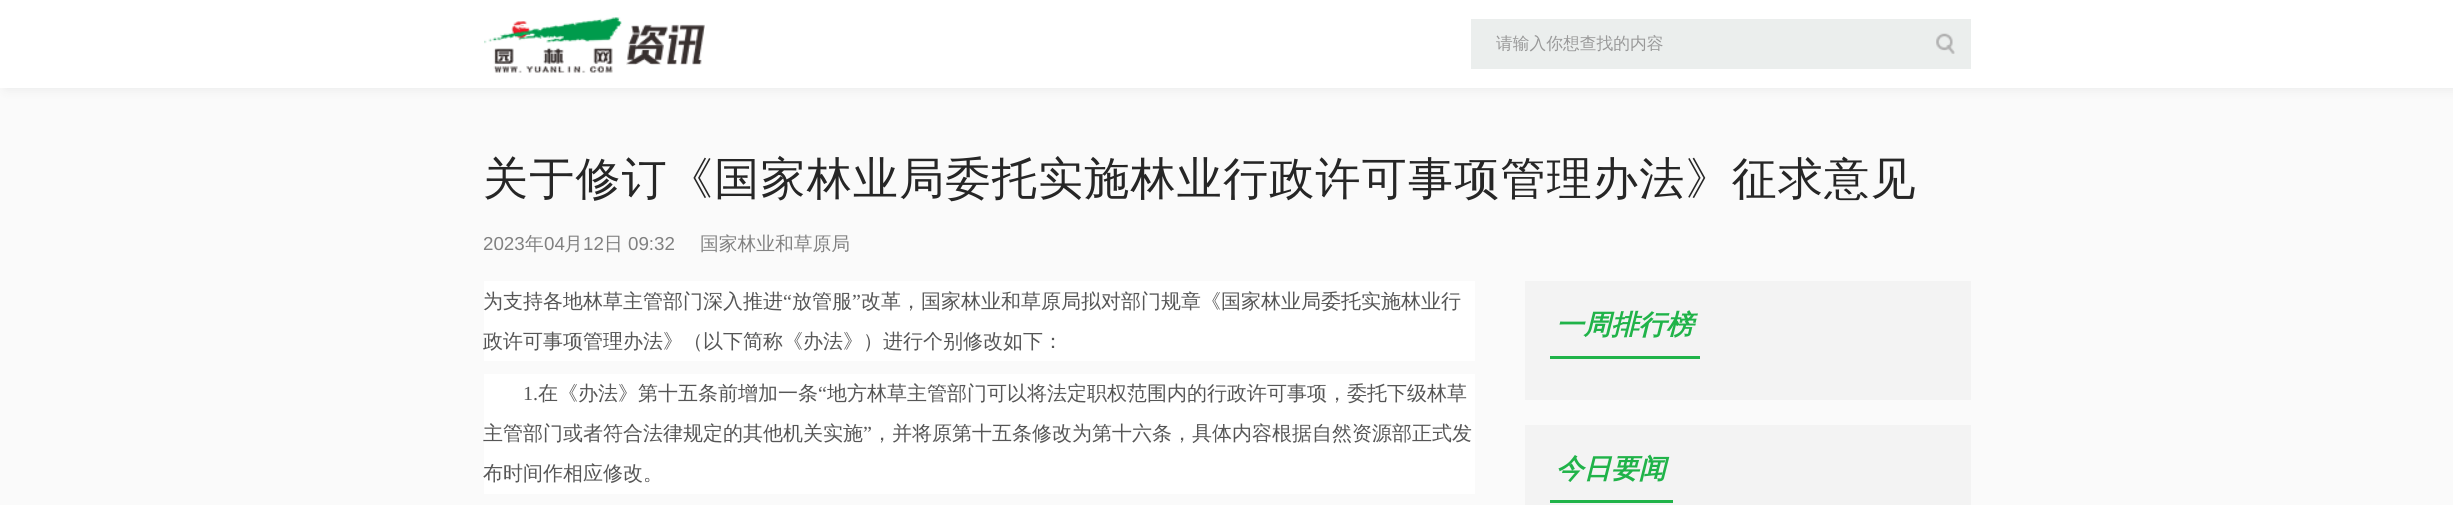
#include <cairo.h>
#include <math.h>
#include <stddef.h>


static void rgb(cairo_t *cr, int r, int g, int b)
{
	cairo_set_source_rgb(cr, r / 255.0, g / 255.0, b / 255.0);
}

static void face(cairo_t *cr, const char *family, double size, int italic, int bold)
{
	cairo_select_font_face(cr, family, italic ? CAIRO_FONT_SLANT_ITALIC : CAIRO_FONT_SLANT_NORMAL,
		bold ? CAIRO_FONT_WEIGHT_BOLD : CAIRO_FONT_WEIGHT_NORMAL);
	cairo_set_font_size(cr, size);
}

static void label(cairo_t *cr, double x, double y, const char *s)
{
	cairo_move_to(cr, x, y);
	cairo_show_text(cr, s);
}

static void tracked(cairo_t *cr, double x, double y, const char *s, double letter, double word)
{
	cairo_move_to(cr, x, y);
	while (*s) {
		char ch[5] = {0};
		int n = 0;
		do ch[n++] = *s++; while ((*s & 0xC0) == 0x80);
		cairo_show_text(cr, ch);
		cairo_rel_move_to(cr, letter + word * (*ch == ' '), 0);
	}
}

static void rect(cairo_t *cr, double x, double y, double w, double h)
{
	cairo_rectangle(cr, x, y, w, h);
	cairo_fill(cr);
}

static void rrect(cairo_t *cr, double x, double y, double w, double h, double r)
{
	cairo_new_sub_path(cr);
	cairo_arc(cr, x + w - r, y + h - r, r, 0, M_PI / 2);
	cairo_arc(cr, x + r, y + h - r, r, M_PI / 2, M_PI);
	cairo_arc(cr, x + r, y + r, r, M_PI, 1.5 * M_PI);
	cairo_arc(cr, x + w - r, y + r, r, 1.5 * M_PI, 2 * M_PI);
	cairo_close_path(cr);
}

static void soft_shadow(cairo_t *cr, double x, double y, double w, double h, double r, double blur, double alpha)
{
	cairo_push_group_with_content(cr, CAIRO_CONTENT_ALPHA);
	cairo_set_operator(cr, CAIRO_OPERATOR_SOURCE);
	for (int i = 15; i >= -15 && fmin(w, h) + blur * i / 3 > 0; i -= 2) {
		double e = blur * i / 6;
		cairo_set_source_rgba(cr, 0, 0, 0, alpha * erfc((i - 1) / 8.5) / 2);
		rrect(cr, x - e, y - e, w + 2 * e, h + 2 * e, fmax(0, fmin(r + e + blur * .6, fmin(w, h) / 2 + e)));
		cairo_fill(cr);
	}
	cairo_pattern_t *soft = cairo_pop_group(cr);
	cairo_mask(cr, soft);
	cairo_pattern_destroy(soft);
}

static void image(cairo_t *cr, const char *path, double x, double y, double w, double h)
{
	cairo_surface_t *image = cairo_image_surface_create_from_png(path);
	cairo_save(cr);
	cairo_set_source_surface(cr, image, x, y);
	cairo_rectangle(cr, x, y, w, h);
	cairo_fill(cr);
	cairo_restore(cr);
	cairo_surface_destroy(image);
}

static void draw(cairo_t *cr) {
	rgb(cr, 250, 250, 250);
	cairo_paint(cr);
	rgb(cr, 53, 55, 54);
	soft_shadow(cr, 6, 0, 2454, 88, 0, 6, 0.1);
	rgb(cr, 255, 255, 255);
	rect(cr, 0, 0, 2453, 88);
	image(cr, "image0.png", 484, 17, 138, 56);
	image(cr, "image1.png", 626, 24, 79, 41);
	rgb(cr, 235, 238, 237);
	rect(cr, 1471, 19, 500, 50);
	face(cr, "WenQuanYi Zen Hei Medium", 16.75, 0, 0);
	rgb(cr, 153, 153, 153);
	label(cr, 1496, 49, "请输入你想查找的内容");
	image(cr, "image2.png", 1936, 33, 19, 21);
	face(cr, "WenQuanYi Zen Hei Medium", 45, 0, 0);
	rgb(cr, 38, 38, 38);
	tracked(cr, 483, 194, "关于修订《国家林业局委托实施林业行政许可事项管理办法》征求意见", 1.25, 0);
	face(cr, "Liberation Sans", 18.75, 0, 0);
	rgb(cr, 129, 129, 129);
	label(cr, 483, 250, "2023");
	face(cr, "WenQuanYi Zen Hei Medium", 18.75, 0, 0);
	label(cr, 525, 250, "年");
	face(cr, "Liberation Sans", 18.75, 0, 0);
	label(cr, 544, 250, "04");
	face(cr, "WenQuanYi Zen Hei Medium", 18.75, 0, 0);
	label(cr, 564, 250, "月");
	face(cr, "Liberation Sans", 18.75, 0, 0);
	label(cr, 583, 250, "12");
	face(cr, "WenQuanYi Zen Hei Medium", 18.75, 0, 0);
	label(cr, 604, 250, "日");
	face(cr, "Liberation Sans", 18.75, 0, 0);
	label(cr, 628, 250, "09:32");
	face(cr, "WenQuanYi Zen Hei Medium", 18.75, 0, 0);
	label(cr, 700, 250, "国家林业和草原局");
	rgb(cr, 255, 255, 255);
	rect(cr, 484, 281, 991, 80);
	face(cr, "WenQuanYi Zen Hei Medium", 20, 0, 0);
	rgb(cr, 86, 86, 86);
	label(cr, 483, 308, "为支持各地林草主管部门深入推进");
	face(cr, "Liberation Serif", 20, 0, 0);
	label(cr, 783, 308, "“");
	face(cr, "WenQuanYi Zen Hei Medium", 20, 0, 0);
	label(cr, 792, 308, "放管服");
	face(cr, "Liberation Serif", 20, 0, 0);
	label(cr, 852, 308, "”");
	face(cr, "WenQuanYi Zen Hei Medium", 20, 0, 0);
	label(cr, 861, 308, "改革，国家林业和草原局拟对部门规章《国家林业局委托实施林业行");
	label(cr, 483, 348, "政许可事项管理办法》（以下简称《办法》）进行个别修改如下：");
	rgb(cr, 255, 255, 255);
	rect(cr, 484, 374, 991, 120);
	face(cr, "Liberation Serif", 20, 0, 0);
	rgb(cr, 86, 86, 86);
	label(cr, 523, 400, "1.");
	face(cr, "WenQuanYi Zen Hei Medium", 20, 0, 0);
	label(cr, 538, 400, "在《办法》第十五条前增加一条");
	face(cr, "Liberation Serif", 20, 0, 0);
	label(cr, 818, 400, "“");
	face(cr, "WenQuanYi Zen Hei Medium", 20, 0, 0);
	label(cr, 827, 400, "地方林草主管部门可以将法定职权范围内的行政许可事项，委托下级林草");
	label(cr, 483, 440, "主管部门或者符合法律规定的其他机关实施");
	face(cr, "Liberation Serif", 20, 0, 0);
	label(cr, 863, 440, "”");
	face(cr, "WenQuanYi Zen Hei Medium", 20, 0, 0);
	label(cr, 872, 440, "，并将原第十五条修改为第十六条，具体内容根据自然资源部正式发");
	label(cr, 483, 480, "布时间作相应修改。");
	rgb(cr, 243, 243, 243);
	rect(cr, 1525, 281, 446, 119);
	rgb(cr, 32, 179, 73);
	rect(cr, 1550, 356, 150, 3);
	face(cr, "WenQuanYi Zen Hei", 27.5, 1, 1);
	label(cr, 1556, 334, "一周排行榜");
	rgb(cr, 243, 243, 243);
	rect(cr, 1525, 425, 446, 80);
	rgb(cr, 32, 179, 73);
	rect(cr, 1550, 500, 123, 3);
	label(cr, 1556, 478, "今日要闻");
}

int main(void) {
	cairo_surface_t *surface = cairo_image_surface_create(CAIRO_FORMAT_RGB24, 2453, 505);
	cairo_t *cr = cairo_create(surface);
	cairo_font_options_t *options = cairo_font_options_create();
	cairo_font_options_set_hint_metrics(options, CAIRO_HINT_METRICS_OFF);
	cairo_font_options_set_hint_style(options, CAIRO_HINT_STYLE_NONE);
	cairo_set_font_options(cr, options);
	cairo_set_miter_limit(cr, 4);
	draw(cr);
	cairo_surface_write_to_png(surface, "render.png");
	cairo_font_options_destroy(options);
	cairo_destroy(cr);
	cairo_surface_destroy(surface);
	return 0;
}
